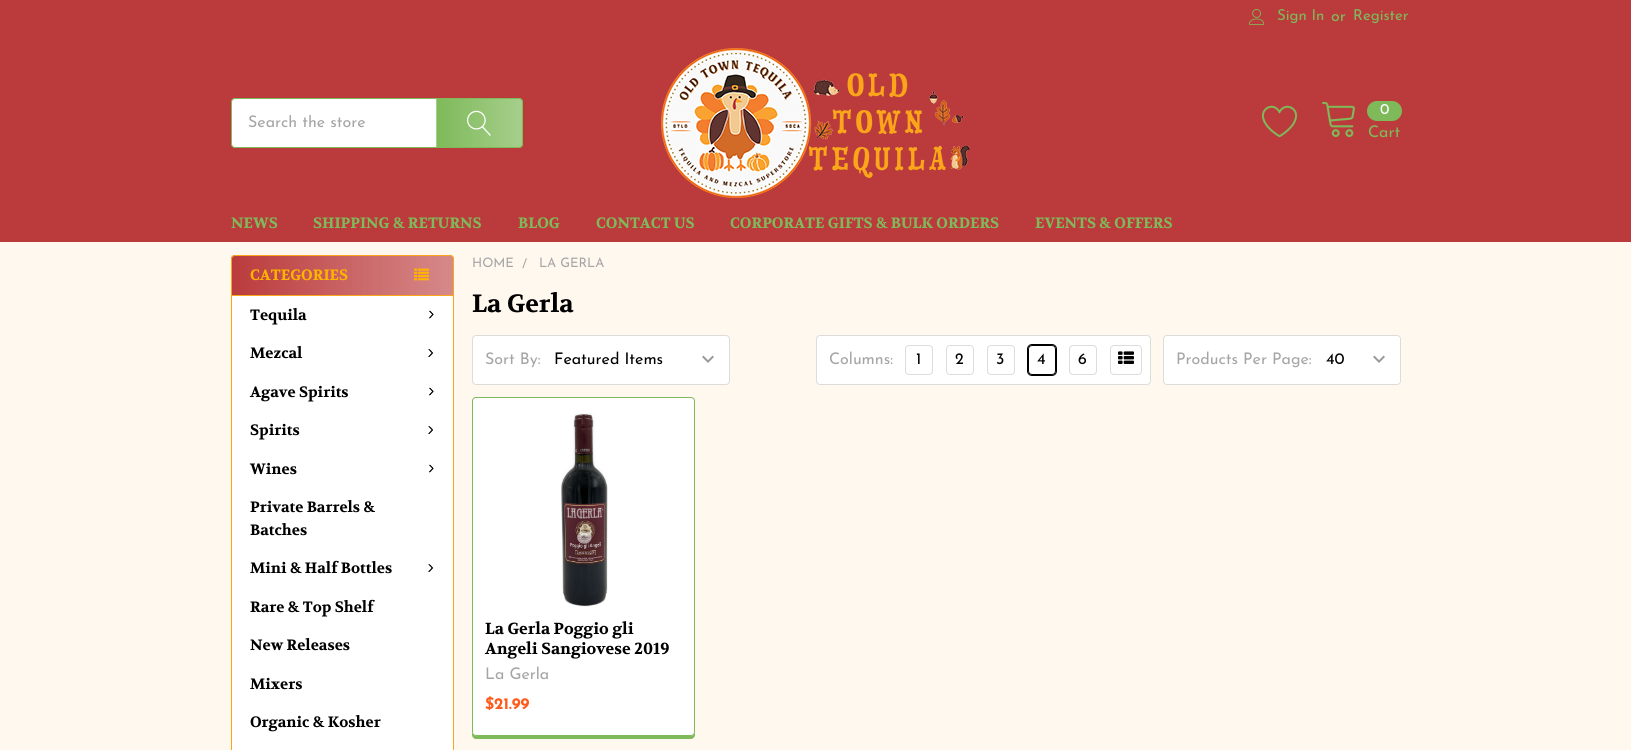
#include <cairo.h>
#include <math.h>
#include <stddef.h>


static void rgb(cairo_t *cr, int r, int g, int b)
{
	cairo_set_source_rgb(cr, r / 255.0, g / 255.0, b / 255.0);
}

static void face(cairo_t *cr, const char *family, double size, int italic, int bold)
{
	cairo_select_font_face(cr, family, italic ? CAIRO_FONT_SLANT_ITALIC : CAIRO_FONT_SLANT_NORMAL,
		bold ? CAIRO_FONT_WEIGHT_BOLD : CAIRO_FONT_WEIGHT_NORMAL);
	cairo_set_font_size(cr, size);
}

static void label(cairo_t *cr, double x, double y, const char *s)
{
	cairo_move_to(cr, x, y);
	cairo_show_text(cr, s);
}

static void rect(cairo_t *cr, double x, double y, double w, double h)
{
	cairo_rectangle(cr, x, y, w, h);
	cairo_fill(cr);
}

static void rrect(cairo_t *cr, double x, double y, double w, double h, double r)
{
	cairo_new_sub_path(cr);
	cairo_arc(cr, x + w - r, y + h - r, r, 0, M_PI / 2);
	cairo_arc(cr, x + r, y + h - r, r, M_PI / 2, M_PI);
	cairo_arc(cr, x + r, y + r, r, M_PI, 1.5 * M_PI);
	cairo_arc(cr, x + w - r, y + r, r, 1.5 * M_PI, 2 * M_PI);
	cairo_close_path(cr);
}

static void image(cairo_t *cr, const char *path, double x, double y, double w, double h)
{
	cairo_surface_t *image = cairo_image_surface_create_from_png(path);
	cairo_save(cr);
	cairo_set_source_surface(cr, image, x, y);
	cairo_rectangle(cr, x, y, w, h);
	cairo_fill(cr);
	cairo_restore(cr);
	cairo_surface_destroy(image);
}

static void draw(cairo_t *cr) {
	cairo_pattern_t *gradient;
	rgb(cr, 255, 248, 239);
	cairo_paint(cr);
	rgb(cr, 187, 59, 60);
	rect(cr, 0, 0, 1631, 242);
	image(cr, "image0.png", 1249, 9, 16, 16);
	face(cr, "Josefin Sans", 15, 0, 0);
	rgb(cr, 127, 186, 90);
	label(cr, 1277, 20, "Sign In");
	face(cr, "Josefin Sans", 16, 0, 0);
	label(cr, 1331, 21, "or");
	face(cr, "Josefin Sans", 15, 0, 0);
	label(cr, 1353, 20, "Register");
	rgb(cr, 255, 255, 255);
	rrect(cr, 231.5, 98.5, 291, 49, 3.5);
	cairo_fill_preserve(cr);
	rgb(cr, 127, 186, 90);
	cairo_set_line_width(cr, 1);
	cairo_stroke(cr);
	cairo_save(cr);
	cairo_rectangle(cr, 248, 115, 258, 16);
	cairo_clip(cr);
	face(cr, "Josefin Sans", 16, 0, 0);
	rgb(cr, 165, 165, 165);
	label(cr, 248, 127, "Search the store");
	cairo_restore(cr);
	gradient = cairo_pattern_create_linear(352, 123, 437, 123);
	cairo_pattern_add_color_stop_rgba(gradient, 0, 0.498, 0.729, 0.353, 1);
	cairo_pattern_add_color_stop_rgba(gradient, 1, 0.498, 0.729, 0.353, 0.7);
	cairo_set_source(cr, gradient);
	cairo_pattern_destroy(gradient);
	rect(cr, 436, 98, 1, 50);
	cairo_save(cr);
	cairo_new_path(cr);
	cairo_move_to(cr, 436, 98);
	cairo_line_to(cr, 519, 98);
	cairo_curve_to(cr, 521, 98, 523, 100, 523, 102);
	cairo_line_to(cr, 523, 144);
	cairo_curve_to(cr, 523, 146, 521, 148, 519, 148);
	cairo_line_to(cr, 436, 148);
	cairo_close_path(cr);
	cairo_clip(cr);
	gradient = cairo_pattern_create_linear(437, 123, 522, 123);
	cairo_pattern_add_color_stop_rgba(gradient, 0, 0.498, 0.729, 0.353, 1);
	cairo_pattern_add_color_stop_rgba(gradient, 1, 0.498, 0.729, 0.353, 0.7);
	cairo_set_source(cr, gradient);
	cairo_pattern_destroy(gradient);
	rect(cr, 437, 98, 85, 50);
	gradient = cairo_pattern_create_linear(522, 123, 607, 123);
	cairo_pattern_add_color_stop_rgba(gradient, 0, 0.498, 0.729, 0.353, 1);
	cairo_pattern_add_color_stop_rgba(gradient, 1, 0.498, 0.729, 0.353, 0.7);
	cairo_set_source(cr, gradient);
	cairo_pattern_destroy(gradient);
	rect(cr, 522, 98, 1, 50);
	cairo_restore(cr);
	image(cr, "image1.png", 467, 110, 24, 26);
	image(cr, "image2.png", 661, 48, 309, 150);
	image(cr, "image3.png", 1262, 105, 35, 33);
	image(cr, "image4.png", 1322, 102, 33, 35);
	rgb(cr, 127, 186, 90);
	rrect(cr, 1367, 101, 35, 20, 10);
	cairo_fill(cr);
	rgb(cr, 255, 255, 255);
	label(cr, 1380, 114, "0");
	face(cr, "Josefin Sans", 16, 0, 0);
	rgb(cr, 127, 186, 90);
	label(cr, 1368, 137, "Cart");
	face(cr, "Volkhov", 15, 0, 1);
	label(cr, 231, 228, "NEWS");
	label(cr, 313, 228, "SHIPPING & RETURNS");
	label(cr, 518, 228, "BLOG");
	label(cr, 596, 228, "CONTACT US");
	label(cr, 730, 228, "CORPORATE GIFTS & BULK ORDERS");
	label(cr, 1035, 228, "EVENTS & OFFERS");
	rgb(cr, 255, 255, 255);
	rrect(cr, 231, 255, 223, 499, 4);
	cairo_fill(cr);
	gradient = cairo_pattern_create_linear(231, 618, 454, 618);
	cairo_pattern_add_color_stop_rgba(gradient, 0, 0.733, 0.231, 0.235, 1);
	cairo_pattern_add_color_stop_rgba(gradient, 1, 0.733, 0.231, 0.235, 0.6);
	cairo_set_source(cr, gradient);
	cairo_pattern_destroy(gradient);
	rrect(cr, 231, 255, 223, 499, 4);
	cairo_fill(cr);
	cairo_new_path(cr);
	cairo_move_to(cr, 235, 255.5);
	cairo_line_to(cr, 450, 255.5);
	cairo_curve_to(cr, 452, 255.5, 453.5, 257, 453.5, 259);
	cairo_line_to(cr, 453.5, 295.5);
	cairo_line_to(cr, 231.5, 295.5);
	cairo_line_to(cr, 231.5, 259);
	cairo_curve_to(cr, 231.5, 257, 233, 255.5, 235, 255.5);
	cairo_close_path(cr);
	rgb(cr, 250, 165, 26);
	cairo_stroke(cr);
	rgb(cr, 255, 180, 0);
	label(cr, 250, 280, "CATEGORIES");
	image(cr, "image5.png", 414, 268, 15, 13);
	rgb(cr, 255, 255, 255);
	rect(cr, 232, 296, 221, 454);
	rgb(cr, 250, 165, 26);
	cairo_set_fill_rule(cr, CAIRO_FILL_RULE_EVEN_ODD);
	cairo_new_path(cr);
	cairo_move_to(cr, 231, 296);
	cairo_line_to(cr, 454, 296);
	cairo_line_to(cr, 454, 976);
	cairo_curve_to(cr, 454, 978, 452, 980, 450, 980);
	cairo_line_to(cr, 235, 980);
	cairo_curve_to(cr, 233, 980, 231, 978, 231, 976);
	cairo_close_path(cr);
	cairo_move_to(cr, 232, 296);
	cairo_line_to(cr, 453, 296);
	cairo_line_to(cr, 453, 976);
	cairo_curve_to(cr, 453, 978, 452, 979, 450, 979);
	cairo_line_to(cr, 235, 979);
	cairo_curve_to(cr, 233, 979, 232, 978, 232, 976);
	cairo_close_path(cr);
	cairo_fill(cr);
	rgb(cr, 0, 0, 0);
	label(cr, 250, 320, "Tequila");
	image(cr, "image6.png", 428, 310, 6, 9);
	label(cr, 250, 358, "Mezcal");
	image(cr, "image7.png", 428, 349, 6, 8);
	label(cr, 250, 397, "Agave Spirits");
	image(cr, "image6.png", 428, 387, 6, 9);
	label(cr, 250, 435, "Spirits");
	image(cr, "image7.png", 428, 426, 6, 8);
	label(cr, 250, 474, "Wines");
	image(cr, "image6.png", 428, 464, 6, 9);
	label(cr, 250, 512, "Private Barrels &");
	label(cr, 250, 535, "Batches");
	label(cr, 250, 573, "Mini & Half Bottles");
	image(cr, "image7.png", 428, 564, 6, 8);
	label(cr, 250, 612, "Rare & Top Shelf");
	label(cr, 250, 650, "New Releases");
	label(cr, 250, 689, "Mixers");
	label(cr, 250, 727, "Organic & Kosher");
	face(cr, "Josefin Sans", 13, 0, 0);
	rgb(cr, 165, 165, 165);
	label(cr, 472, 267, "HOME");
	label(cr, 522, 268, "/");
	label(cr, 539, 267, "LA GERLA");
	face(cr, "Volkhov", 25, 0, 1);
	rgb(cr, 0, 0, 0);
	label(cr, 472, 312, "La Gerla");
	rgb(cr, 255, 255, 255);
	rrect(cr, 472.5, 335.5, 257, 49, 3.5);
	cairo_fill_preserve(cr);
	rgb(cr, 220, 220, 220);
	cairo_stroke(cr);
	face(cr, "Josefin Sans", 16, 0, 0);
	rgb(cr, 165, 165, 165);
	label(cr, 485, 364, "Sort By:");
	image(cr, "image8.png", 702, 355, 12, 8);
	rgb(cr, 0, 0, 0);
	label(cr, 554, 364, "Featured Items");
	rgb(cr, 255, 255, 255);
	rrect(cr, 816.5, 335.5, 334, 49, 3.5);
	cairo_fill_preserve(cr);
	rgb(cr, 220, 220, 220);
	cairo_stroke(cr);
	rgb(cr, 165, 165, 165);
	label(cr, 829, 364, "Columns:");
	rrect(cr, 905.5, 345.5, 27, 29, 3.5);
	rgb(cr, 220, 220, 220);
	cairo_stroke(cr);
	rgb(cr, 0, 0, 0);
	label(cr, 916, 364, "1");
	rrect(cr, 946.5, 345.5, 27, 29, 3.5);
	rgb(cr, 220, 220, 220);
	cairo_stroke(cr);
	rgb(cr, 0, 0, 0);
	label(cr, 955, 364, "2");
	rrect(cr, 987.5, 345.5, 27, 29, 3.5);
	rgb(cr, 220, 220, 220);
	cairo_stroke(cr);
	rgb(cr, 0, 0, 0);
	label(cr, 996, 364, "3");
	rrect(cr, 1027.5, 344.5, 29, 31, 4.5);
	cairo_stroke(cr);
	rrect(cr, 1028.5, 345.5, 27, 29, 3.5);
	cairo_stroke(cr);
	label(cr, 1037, 364, "4");
	rrect(cr, 1069.5, 345.5, 27, 29, 3.5);
	rgb(cr, 220, 220, 220);
	cairo_stroke(cr);
	rgb(cr, 0, 0, 0);
	label(cr, 1078, 364, "6");
	rrect(cr, 1110.5, 345.5, 31, 29, 3.5);
	rgb(cr, 220, 220, 220);
	cairo_stroke(cr);
	image(cr, "image9.png", 1118, 351, 16, 13);
	rgb(cr, 255, 255, 255);
	rrect(cr, 1163.5, 335.5, 237, 49, 3.5);
	cairo_fill_preserve(cr);
	rgb(cr, 220, 220, 220);
	cairo_stroke(cr);
	rgb(cr, 165, 165, 165);
	label(cr, 1176, 364, "Products Per Page:");
	image(cr, "image8.png", 1373, 355, 12, 8);
	rgb(cr, 0, 0, 0);
	label(cr, 1326, 364, "40");
	rgb(cr, 127, 186, 90);
	cairo_set_fill_rule(cr, CAIRO_FILL_RULE_WINDING);
	cairo_new_path(cr);
	cairo_move_to(cr, 472, 732);
	cairo_line_to(cr, 472, 735);
	cairo_curve_to(cr, 472, 737, 474, 739, 476, 739);
	cairo_line_to(cr, 691, 739);
	cairo_curve_to(cr, 693, 739, 695, 737, 695, 735);
	cairo_line_to(cr, 695, 732);
	cairo_curve_to(cr, 695, 734, 693, 736, 691, 736);
	cairo_line_to(cr, 476, 736);
	cairo_curve_to(cr, 474, 736, 472, 734, 472, 732);
	cairo_close_path(cr);
	cairo_fill(cr);
	rgb(cr, 255, 255, 255);
	rrect(cr, 472.5, 397.5, 222, 338, 3.5);
	cairo_fill_preserve(cr);
	rgb(cr, 127, 186, 90);
	cairo_stroke(cr);
	image(cr, "image10.png", 561, 413, 47, 194);
	face(cr, "Volkhov", 16, 0, 1);
	rgb(cr, 0, 0, 0);
	label(cr, 485, 634, "La Gerla Poggio gli");
	label(cr, 485, 654, "Angeli Sangiovese 2019");
	face(cr, "Josefin Sans", 16, 0, 0);
	rgb(cr, 165, 165, 165);
	label(cr, 485, 679, "La Gerla");
	face(cr, "Josefin Sans", 16, 0, 1);
	rgb(cr, 255, 90, 26);
	label(cr, 485, 709, "$21.99");
}

int main(void) {
	cairo_surface_t *surface = cairo_image_surface_create(CAIRO_FORMAT_RGB24, 1631, 750);
	cairo_t *cr = cairo_create(surface);
	cairo_font_options_t *options = cairo_font_options_create();
	cairo_font_options_set_hint_metrics(options, CAIRO_HINT_METRICS_OFF);
	cairo_font_options_set_hint_style(options, CAIRO_HINT_STYLE_NONE);
	cairo_set_font_options(cr, options);
	cairo_set_miter_limit(cr, 4);
	draw(cr);
	cairo_surface_write_to_png(surface, "render.png");
	cairo_font_options_destroy(options);
	cairo_destroy(cr);
	cairo_surface_destroy(surface);
	return 0;
}
